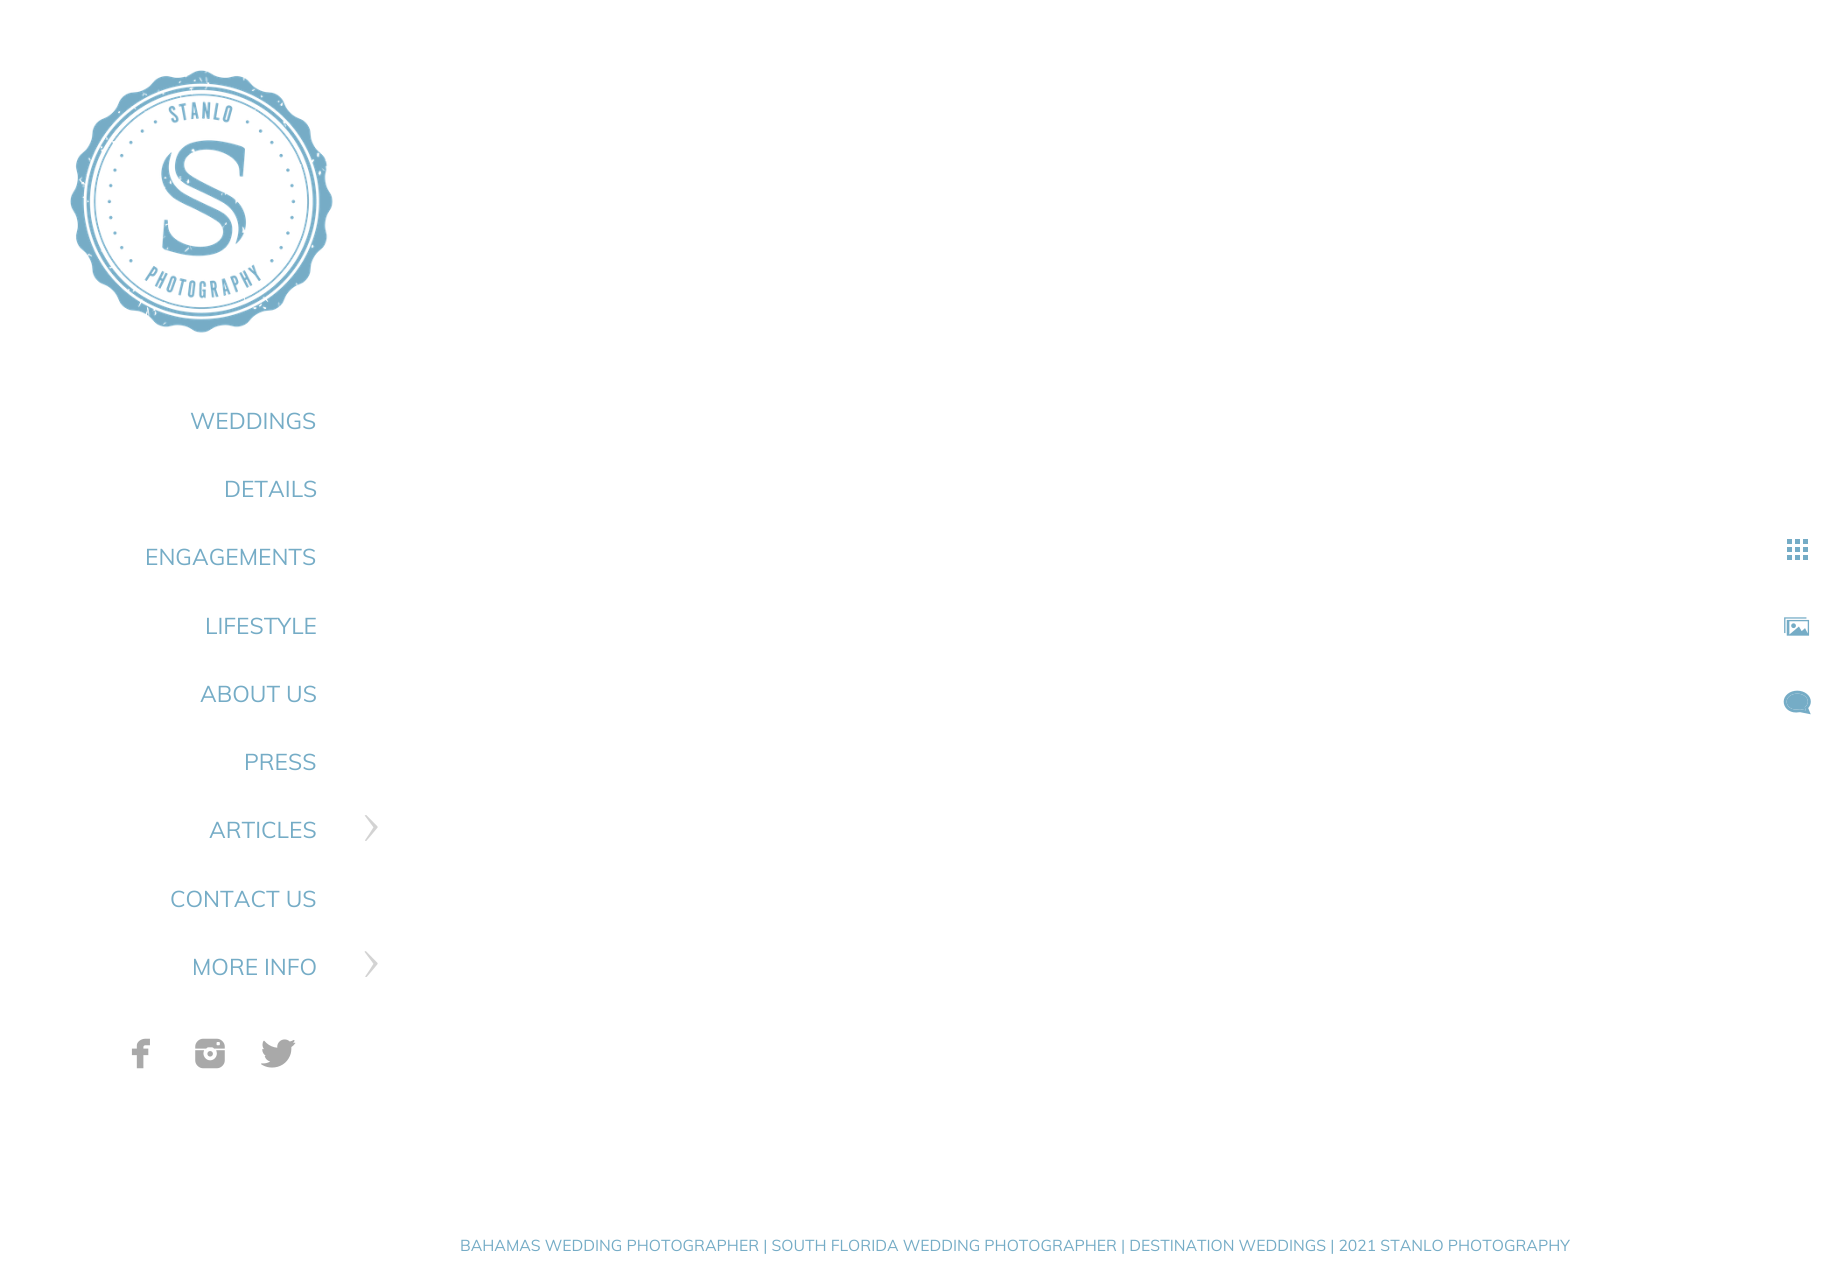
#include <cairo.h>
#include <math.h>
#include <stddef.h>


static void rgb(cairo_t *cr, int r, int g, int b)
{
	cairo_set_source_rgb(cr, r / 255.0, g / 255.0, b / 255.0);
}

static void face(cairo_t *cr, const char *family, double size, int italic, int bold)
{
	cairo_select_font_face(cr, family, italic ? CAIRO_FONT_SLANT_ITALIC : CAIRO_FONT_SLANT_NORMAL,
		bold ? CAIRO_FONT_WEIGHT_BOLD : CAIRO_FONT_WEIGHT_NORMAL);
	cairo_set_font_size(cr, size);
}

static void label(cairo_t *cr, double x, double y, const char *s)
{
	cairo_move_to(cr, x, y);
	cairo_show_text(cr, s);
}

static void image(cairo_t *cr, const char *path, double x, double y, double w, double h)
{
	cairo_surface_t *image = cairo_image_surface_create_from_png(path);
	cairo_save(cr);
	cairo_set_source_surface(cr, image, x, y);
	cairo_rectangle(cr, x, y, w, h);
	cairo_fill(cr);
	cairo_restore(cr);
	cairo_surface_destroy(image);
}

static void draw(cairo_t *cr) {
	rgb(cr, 255, 255, 255);
	cairo_paint(cr);
	image(cr, "image0.png", 70, 70, 263, 263);
	face(cr, "Muli", 22.75, 0, 0);
	rgb(cr, 117, 172, 198);
	label(cr, 190, 429, "WEDDINGS");
	label(cr, 224, 497, "DETAILS");
	label(cr, 145, 565, "ENGAGEMENTS");
	label(cr, 205, 634, "LIFESTYLE");
	label(cr, 200, 702, "ABOUT US");
	label(cr, 244, 770, "PRESS");
	label(cr, 209, 838, "ARTICLES");
	image(cr, "image1.png", 364, 815, 14, 26);
	label(cr, 170, 907, "CONTACT US");
	label(cr, 192, 975, "MORE INFO");
	image(cr, "image2.png", 364, 951, 14, 26);
	image(cr, "image3.png", 131, 1038, 19, 31);
	image(cr, "image4.png", 195, 1038, 30, 31);
	image(cr, "image5.png", 261, 1039, 35, 29);
	image(cr, "image6.png", 1787, 539, 21, 21);
	image(cr, "image7.png", 1784, 617, 26, 19);
	image(cr, "image8.png", 1783, 690, 28, 25);
	face(cr, "Muli", 15.75, 0, 0);
	label(cr, 460, 1251, "BAHAMAS WEDDING PHOTOGRAPHER | SOUTH FLORIDA WEDDING PHOTOGRAPHER | DESTINATION WEDDINGS | 2021 STANLO PHOTOGRAPHY");
}

int main(void) {
	cairo_surface_t *surface = cairo_image_surface_create(CAIRO_FORMAT_RGB24, 1844, 1288);
	cairo_t *cr = cairo_create(surface);
	cairo_font_options_t *options = cairo_font_options_create();
	cairo_font_options_set_hint_metrics(options, CAIRO_HINT_METRICS_OFF);
	cairo_font_options_set_hint_style(options, CAIRO_HINT_STYLE_NONE);
	cairo_set_font_options(cr, options);
	cairo_set_miter_limit(cr, 4);
	draw(cr);
	cairo_surface_write_to_png(surface, "render.png");
	cairo_font_options_destroy(options);
	cairo_destroy(cr);
	cairo_surface_destroy(surface);
	return 0;
}
